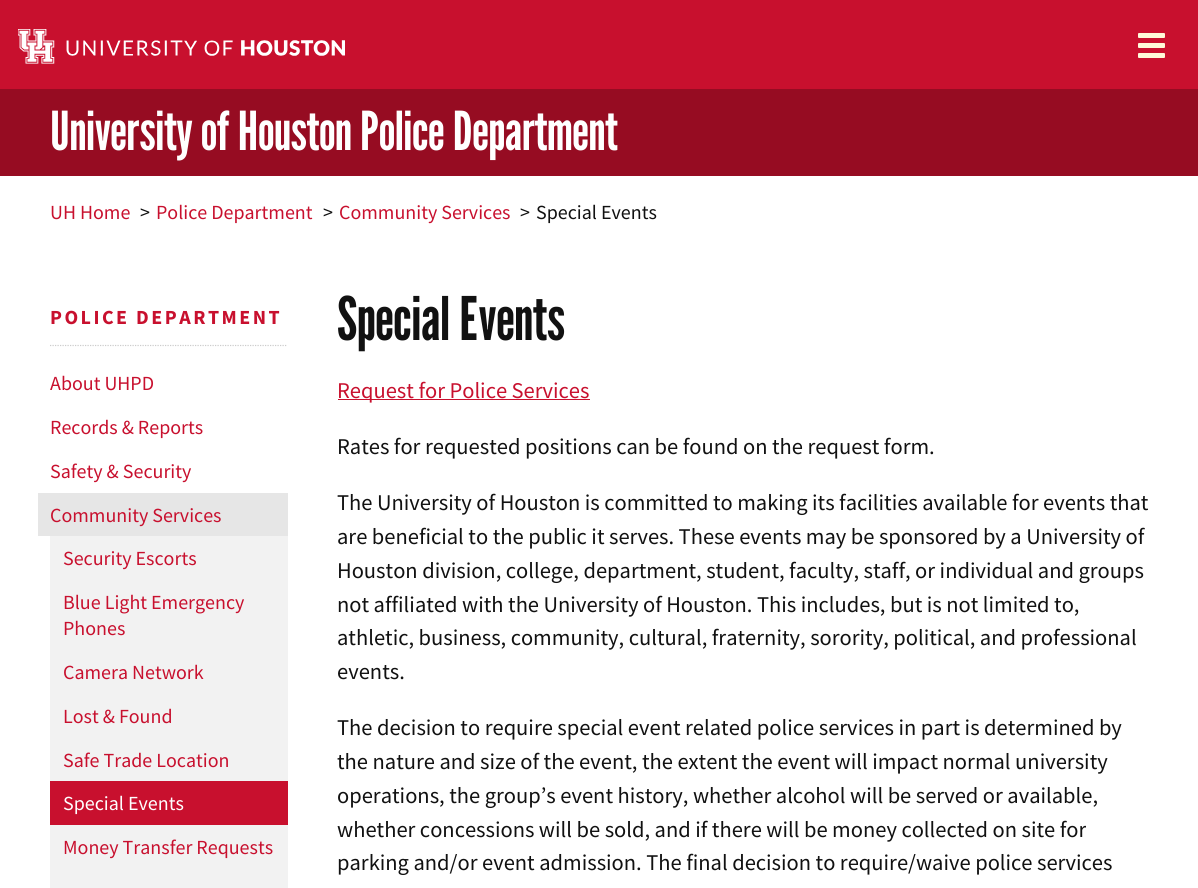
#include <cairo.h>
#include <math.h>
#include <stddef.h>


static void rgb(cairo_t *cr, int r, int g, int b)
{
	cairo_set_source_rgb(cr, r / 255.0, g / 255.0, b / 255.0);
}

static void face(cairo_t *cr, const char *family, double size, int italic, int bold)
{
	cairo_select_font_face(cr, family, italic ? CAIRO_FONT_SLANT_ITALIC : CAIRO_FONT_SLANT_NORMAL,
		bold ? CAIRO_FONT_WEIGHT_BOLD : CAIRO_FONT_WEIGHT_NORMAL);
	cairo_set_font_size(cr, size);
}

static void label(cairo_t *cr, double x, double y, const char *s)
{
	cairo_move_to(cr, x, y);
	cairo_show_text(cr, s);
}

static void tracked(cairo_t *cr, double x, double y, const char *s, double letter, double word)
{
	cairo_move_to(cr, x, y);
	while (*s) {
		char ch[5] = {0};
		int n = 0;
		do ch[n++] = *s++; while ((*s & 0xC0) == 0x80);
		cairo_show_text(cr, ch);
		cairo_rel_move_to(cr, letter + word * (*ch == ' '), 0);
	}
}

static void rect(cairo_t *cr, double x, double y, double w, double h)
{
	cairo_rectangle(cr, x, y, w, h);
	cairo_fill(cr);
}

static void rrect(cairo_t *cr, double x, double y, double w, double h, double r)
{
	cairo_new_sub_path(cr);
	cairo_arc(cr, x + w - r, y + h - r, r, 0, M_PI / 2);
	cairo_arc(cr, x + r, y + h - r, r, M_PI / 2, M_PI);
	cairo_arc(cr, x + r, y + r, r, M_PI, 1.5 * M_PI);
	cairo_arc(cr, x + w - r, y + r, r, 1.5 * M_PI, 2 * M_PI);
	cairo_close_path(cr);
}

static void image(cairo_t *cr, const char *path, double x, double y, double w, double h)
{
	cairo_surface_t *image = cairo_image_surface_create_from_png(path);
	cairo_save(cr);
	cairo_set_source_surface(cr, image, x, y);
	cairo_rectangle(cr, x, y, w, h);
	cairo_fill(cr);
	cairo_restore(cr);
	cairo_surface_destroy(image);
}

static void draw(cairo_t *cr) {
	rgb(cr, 255, 255, 255);
	cairo_paint(cr);
	rgb(cr, 200, 16, 46);
	rect(cr, 0, 0, 1198, 89);
	image(cr, "image0.png", 18, 29, 327, 35);
	rgb(cr, 255, 249, 217);
	rrect(cr, 1138, 33, 27, 5, 1);
	cairo_fill(cr);
	rrect(cr, 1138, 43, 27, 5, 1);
	cairo_fill(cr);
	rrect(cr, 1138, 53, 27, 5, 1);
	cairo_fill(cr);
	rgb(cr, 150, 12, 34);
	rect(cr, 0, 89, 1198, 87);
	face(cr, "League Gothic", 53.6, 0, 0);
	rgb(cr, 255, 255, 255);
	label(cr, 50, 150, "University of Houston Police Department");
	face(cr, "Source Sans Pro", 20, 0, 0);
	rgb(cr, 200, 16, 46);
	label(cr, 50, 219, "UH Home");
	rgb(cr, 17, 17, 17);
	label(cr, 140, 219, ">");
	rgb(cr, 200, 16, 46);
	label(cr, 156, 219, "Police Department");
	rgb(cr, 17, 17, 17);
	label(cr, 323, 219, ">");
	rgb(cr, 200, 16, 46);
	label(cr, 339, 219, "Community Services");
	rgb(cr, 17, 17, 17);
	label(cr, 520, 219, ">");
	label(cr, 536, 219, "Special Events");
	cairo_new_path(cr);
	cairo_move_to(cr, 50, 345.5);
	cairo_line_to(cr, 287.5, 345.5);
	rgb(cr, 204, 204, 204);
	cairo_set_line_width(cr, 1.2);
	cairo_set_dash(cr, (double[]){1.25, 1.25}, 2, 0);
	cairo_stroke(cr);
	face(cr, "Source Sans Pro", 20, 0, 1);
	rgb(cr, 200, 16, 46);
	tracked(cr, 50, 324, "POLICE DEPARTMENT", 2.5, 0);
	face(cr, "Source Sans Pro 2", 20, 0, 0);
	label(cr, 50, 390, "About UHPD");
	label(cr, 50, 434, "Records & Reports");
	label(cr, 50, 478, "Safety & Security");
	rgb(cr, 230, 230, 230);
	rect(cr, 38, 493, 250, 43);
	rgb(cr, 200, 16, 46);
	label(cr, 50, 522, "Community Services");
	rgb(cr, 242, 242, 242);
	rect(cr, 50, 536, 238, 245);
	rgb(cr, 200, 16, 46);
	label(cr, 63, 565, "Security Escorts");
	label(cr, 63, 609, "Blue Light Emergency");
	label(cr, 63, 635, "Phones");
	label(cr, 63, 679, "Camera Network");
	label(cr, 63, 723, "Lost & Found");
	label(cr, 63, 767, "Safe Trade Location");
	rect(cr, 50, 781, 238, 44);
	rgb(cr, 255, 255, 255);
	label(cr, 63, 810, "Special Events");
	rgb(cr, 242, 242, 242);
	rect(cr, 50, 825, 238, 63);
	rgb(cr, 200, 16, 46);
	label(cr, 63, 854, "Money Transfer Requests");
	face(cr, "League Gothic", 60, 0, 0);
	rgb(cr, 17, 17, 17);
	label(cr, 337, 340, "Special Events");
	rgb(cr, 200, 16, 46);
	rect(cr, 338, 399, 252, 1);
	face(cr, "Source Sans Pro 2", 22.5, 0, 0);
	label(cr, 337, 398, "Request for Police Services");
	rgb(cr, 17, 17, 17);
	label(cr, 337, 454, "Rates for requested positions can be found on the request form.");
	label(cr, 337, 510, "The University of Houston is committed to making its facilities available for events that");
	label(cr, 337, 544, "are beneficial to the public it serves. These events may be sponsored by a University of");
	label(cr, 337, 578, "Houston division, college, department, student, faculty, staff, or individual and groups");
	label(cr, 337, 612, "not affiliated with the University of Houston. This includes, but is not limited to,");
	label(cr, 337, 645, "athletic, business, community, cultural, fraternity, sorority, political, and professional");
	label(cr, 337, 679, "events.");
	label(cr, 337, 735, "The decision to require special event related police services in part is determined by");
	label(cr, 337, 769, "the nature and size of the event, the extent the event will impact normal university");
	label(cr, 337, 803, "operations, the group’s event history, whether alcohol will be served or available,");
	label(cr, 337, 837, "whether concessions will be sold, and if there will be money collected on site for");
	label(cr, 337, 870, "parking and/or event admission. The final decision to require/waive police services");
}

int main(void) {
	cairo_surface_t *surface = cairo_image_surface_create(CAIRO_FORMAT_RGB24, 1198, 888);
	cairo_t *cr = cairo_create(surface);
	cairo_font_options_t *options = cairo_font_options_create();
	cairo_font_options_set_hint_metrics(options, CAIRO_HINT_METRICS_OFF);
	cairo_font_options_set_hint_style(options, CAIRO_HINT_STYLE_NONE);
	cairo_set_font_options(cr, options);
	cairo_set_miter_limit(cr, 4);
	draw(cr);
	cairo_surface_write_to_png(surface, "render.png");
	cairo_font_options_destroy(options);
	cairo_destroy(cr);
	cairo_surface_destroy(surface);
	return 0;
}
